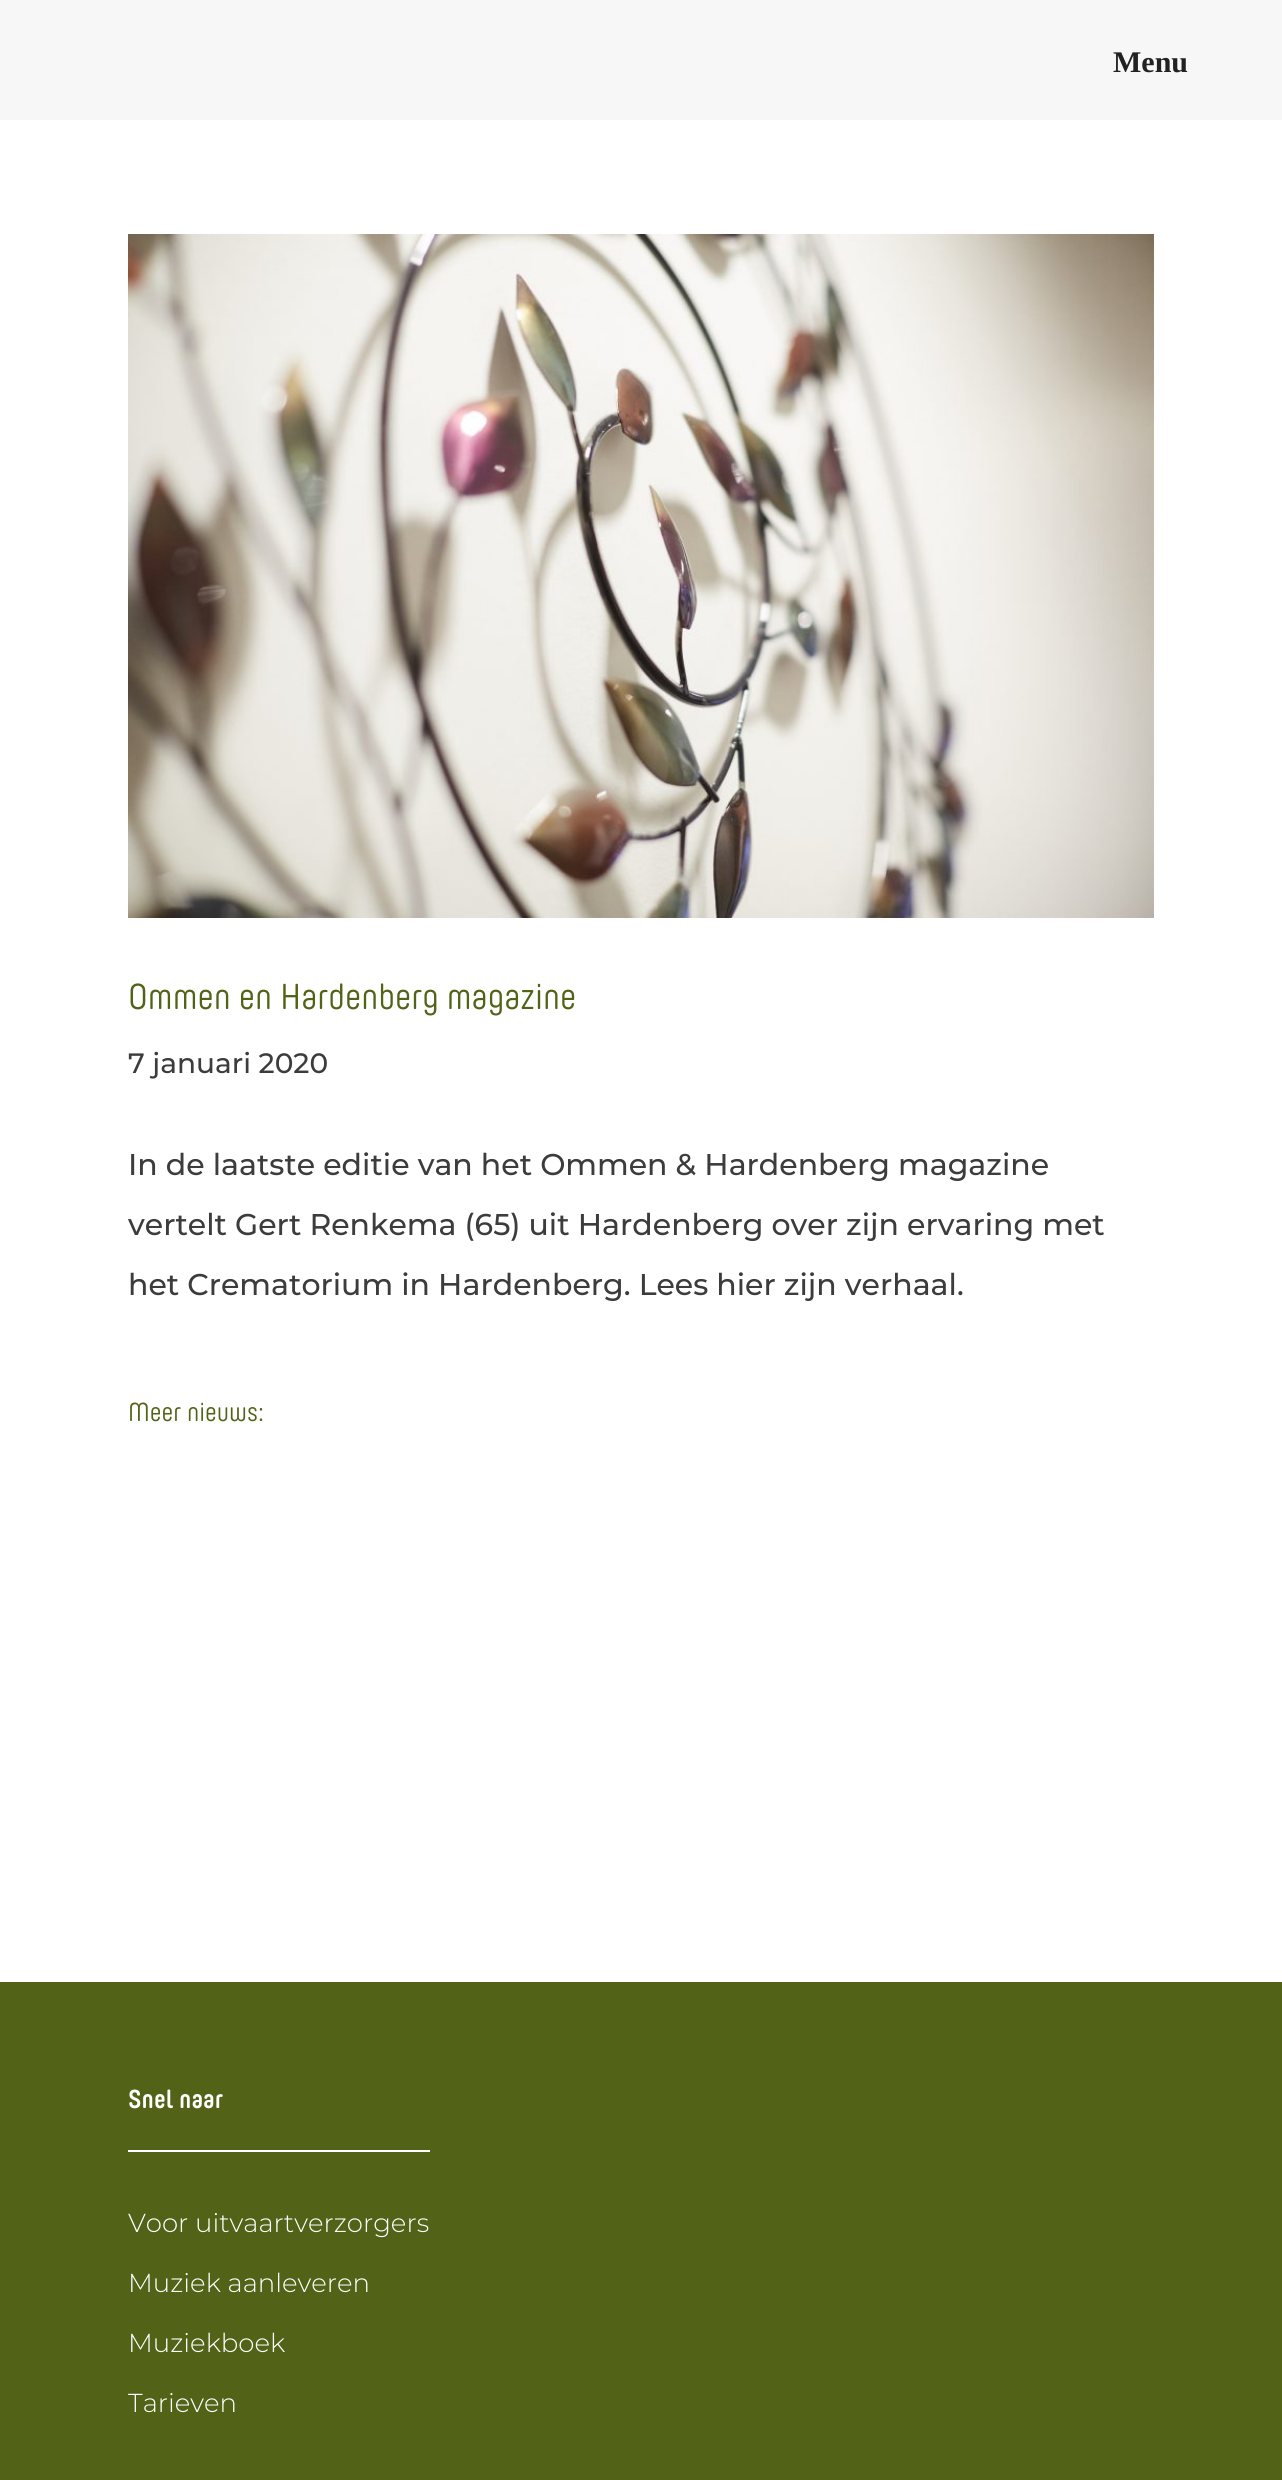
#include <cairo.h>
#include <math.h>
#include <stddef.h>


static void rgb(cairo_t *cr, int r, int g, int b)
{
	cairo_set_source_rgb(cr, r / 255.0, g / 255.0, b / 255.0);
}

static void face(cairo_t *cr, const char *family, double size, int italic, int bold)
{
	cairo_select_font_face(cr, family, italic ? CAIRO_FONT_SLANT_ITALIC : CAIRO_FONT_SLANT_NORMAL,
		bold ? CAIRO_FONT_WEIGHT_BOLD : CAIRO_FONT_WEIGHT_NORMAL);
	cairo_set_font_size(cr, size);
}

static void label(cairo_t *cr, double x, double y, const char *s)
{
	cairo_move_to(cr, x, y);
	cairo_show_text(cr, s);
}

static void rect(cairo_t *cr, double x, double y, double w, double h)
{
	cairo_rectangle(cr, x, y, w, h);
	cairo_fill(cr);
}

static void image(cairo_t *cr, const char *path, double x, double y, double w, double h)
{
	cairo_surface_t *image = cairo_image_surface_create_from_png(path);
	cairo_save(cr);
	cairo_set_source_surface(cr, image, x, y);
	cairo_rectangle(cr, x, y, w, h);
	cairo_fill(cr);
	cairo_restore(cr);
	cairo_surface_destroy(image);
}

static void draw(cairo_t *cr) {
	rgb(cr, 255, 255, 255);
	cairo_paint(cr);
	rgb(cr, 247, 247, 247);
	rect(cr, 0, 0, 1282, 120);
	face(cr, "Liberation Serif", 30, 0, 1);
	rgb(cr, 34, 34, 34);
	label(cr, 1113, 72, "Menu");
	image(cr, "image0.png", 128, 234, 1026, 684);
	face(cr, "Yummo", 36, 0, 0);
	rgb(cr, 82, 98, 22);
	label(cr, 128, 1009, "Ommen en Hardenberg magazine");
	face(cr, "Montserrat Medium", 28, 0, 0);
	rgb(cr, 60, 60, 60);
	label(cr, 128, 1073, "7 januari 2020");
	face(cr, "Montserrat Medium", 30, 0, 0);
	label(cr, 128, 1175, "In de laatste editie van het Ommen & Hardenberg magazine");
	label(cr, 128, 1235, "vertelt Gert Renkema (65) uit Hardenberg over zijn ervaring met");
	label(cr, 128, 1295, "het Crematorium in Hardenberg. Lees hier zijn verhaal.");
	face(cr, "Yummo", 26, 0, 0);
	rgb(cr, 82, 98, 22);
	label(cr, 128, 1421, "Meer nieuws:");
	rect(cr, 0, 1982, 1282, 498);
	rgb(cr, 255, 255, 255);
	rect(cr, 128, 2150, 302, 2);
	face(cr, "Yummo", 26, 0, 1);
	label(cr, 128, 2108, "Snel naar");
	face(cr, "Montserrat Light", 26, 0, 0);
	label(cr, 128, 2232, "Voor uitvaartverzorgers");
	label(cr, 128, 2292, "Muziek aanleveren");
	label(cr, 128, 2352, "Muziekboek");
	label(cr, 128, 2412, "Tarieven");
}

int main(void) {
	cairo_surface_t *surface = cairo_image_surface_create(CAIRO_FORMAT_RGB24, 1282, 2480);
	cairo_t *cr = cairo_create(surface);
	cairo_font_options_t *options = cairo_font_options_create();
	cairo_font_options_set_hint_metrics(options, CAIRO_HINT_METRICS_OFF);
	cairo_font_options_set_hint_style(options, CAIRO_HINT_STYLE_NONE);
	cairo_set_font_options(cr, options);
	cairo_set_miter_limit(cr, 4);
	draw(cr);
	cairo_surface_write_to_png(surface, "render.png");
	cairo_font_options_destroy(options);
	cairo_destroy(cr);
	cairo_surface_destroy(surface);
	return 0;
}
